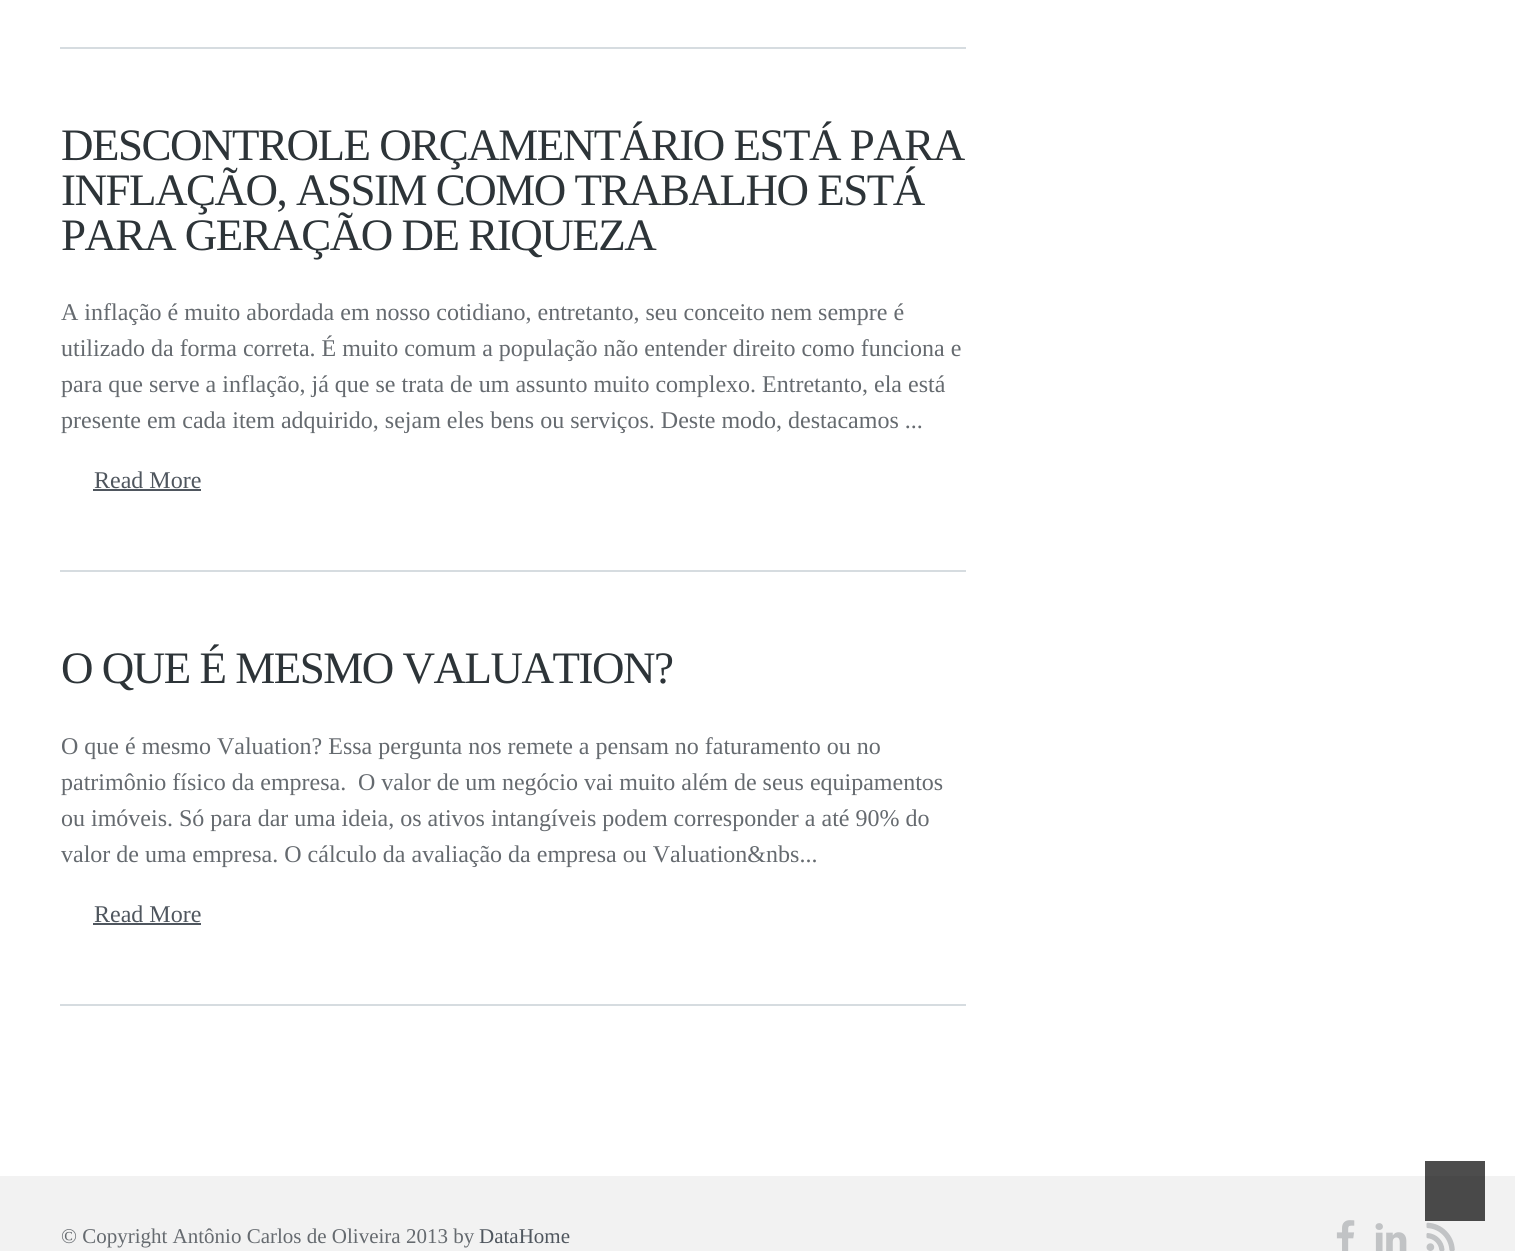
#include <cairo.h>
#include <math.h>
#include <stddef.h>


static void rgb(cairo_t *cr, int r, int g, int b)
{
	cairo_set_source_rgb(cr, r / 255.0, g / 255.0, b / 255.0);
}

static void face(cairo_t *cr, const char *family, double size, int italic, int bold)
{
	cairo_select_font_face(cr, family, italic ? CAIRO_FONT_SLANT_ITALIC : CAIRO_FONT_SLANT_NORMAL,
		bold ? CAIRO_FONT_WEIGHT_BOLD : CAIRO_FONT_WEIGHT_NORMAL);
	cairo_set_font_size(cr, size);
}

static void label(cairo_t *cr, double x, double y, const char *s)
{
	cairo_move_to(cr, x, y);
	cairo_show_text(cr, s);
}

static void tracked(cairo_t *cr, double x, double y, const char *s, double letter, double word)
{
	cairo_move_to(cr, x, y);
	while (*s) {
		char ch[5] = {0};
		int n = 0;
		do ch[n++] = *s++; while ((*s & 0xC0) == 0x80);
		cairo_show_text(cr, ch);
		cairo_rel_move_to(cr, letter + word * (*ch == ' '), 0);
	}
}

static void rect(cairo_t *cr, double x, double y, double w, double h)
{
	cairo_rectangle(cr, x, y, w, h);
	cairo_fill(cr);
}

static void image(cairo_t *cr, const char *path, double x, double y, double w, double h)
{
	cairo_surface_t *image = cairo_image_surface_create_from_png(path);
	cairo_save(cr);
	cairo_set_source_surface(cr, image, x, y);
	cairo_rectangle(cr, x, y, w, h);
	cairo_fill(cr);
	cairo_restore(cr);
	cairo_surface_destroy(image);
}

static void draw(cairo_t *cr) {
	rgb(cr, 255, 255, 255);
	cairo_paint(cr);
	rgb(cr, 77, 77, 77);
	rect(cr, 1425, 1161, 60, 15);
	rgb(cr, 214, 220, 224);
	rect(cr, 60, 47, 906, 2);
	face(cr, "Liberation Serif", 45, 0, 0);
	rgb(cr, 45, 52, 56);
	tracked(cr, 61, 160, "DESCONTROLE ORÇAMENTÁRIO ESTÁ PARA", -1.5, 0);
	tracked(cr, 61, 205, "INFLAÇÃO, ASSIM COMO TRABALHO ESTÁ", -1.5, 0);
	tracked(cr, 61, 250, "PARA GERAÇÃO DE RIQUEZA", -1.5, 0);
	face(cr, "Liberation Serif", 24, 0, 0);
	rgb(cr, 101, 106, 111);
	label(cr, 61, 320, "A inflação é muito abordada em nosso cotidiano, entretanto, seu conceito nem sempre é");
	label(cr, 61, 356, "utilizado da forma correta. É muito comum a população não entender direito como funciona e");
	label(cr, 61, 392, "para que serve a inflação, já que se trata de um assunto muito complexo. Entretanto, ela está");
	label(cr, 61, 428, "presente em cada item adquirido, sejam eles bens ou serviços. Deste modo, destacamos ...");
	rgb(cr, 79, 86, 94);
	label(cr, 94, 488, "Read More");
	rect(cr, 93, 489, 108, 2);
	rgb(cr, 214, 220, 224);
	rect(cr, 60, 570, 906, 2);
	face(cr, "Liberation Serif", 45, 0, 0);
	rgb(cr, 45, 52, 56);
	tracked(cr, 61, 683, "O QUE É MESMO VALUATION?", -1.5, 0);
	face(cr, "Liberation Serif", 24, 0, 0);
	rgb(cr, 101, 106, 111);
	label(cr, 61, 754, "O que é mesmo Valuation? Essa pergunta nos remete a pensam no faturamento ou no");
	label(cr, 61, 790, "patrimônio físico da empresa.");
	label(cr, 358, 790, "O valor de um negócio vai muito além de seus equipamentos");
	label(cr, 61, 826, "ou imóveis. Só para dar uma ideia, os ativos intangíveis podem corresponder a até 90% do");
	label(cr, 61, 862, "valor de uma empresa. O cálculo da avaliação da empresa ou Valuation&nbs...");
	rgb(cr, 79, 86, 94);
	label(cr, 94, 922, "Read More");
	rect(cr, 93, 923, 108, 2);
	rgb(cr, 214, 220, 224);
	rect(cr, 60, 1004, 906, 2);
	rgb(cr, 242, 242, 242);
	rect(cr, 0, 1176, 1515, 75);
	rgb(cr, 73, 73, 73);
	rect(cr, 1425, 1176, 60, 45);
	face(cr, "Liberation Serif", 21, 0, 0);
	rgb(cr, 101, 106, 111);
	label(cr, 61, 1243, "© Copyright Antônio Carlos de Oliveira 2013 by");
	rgb(cr, 79, 86, 94);
	label(cr, 479, 1243, "DataHome");
	image(cr, "image0.png", 1336, 1220, 19, 31);
	image(cr, "image1.png", 1375, 1223, 32, 28);
	image(cr, "image2.png", 1426, 1222, 29, 29);
}

int main(void) {
	cairo_surface_t *surface = cairo_image_surface_create(CAIRO_FORMAT_RGB24, 1515, 1251);
	cairo_t *cr = cairo_create(surface);
	cairo_font_options_t *options = cairo_font_options_create();
	cairo_font_options_set_hint_metrics(options, CAIRO_HINT_METRICS_OFF);
	cairo_font_options_set_hint_style(options, CAIRO_HINT_STYLE_NONE);
	cairo_set_font_options(cr, options);
	cairo_set_miter_limit(cr, 4);
	draw(cr);
	cairo_surface_write_to_png(surface, "render.png");
	cairo_font_options_destroy(options);
	cairo_destroy(cr);
	cairo_surface_destroy(surface);
	return 0;
}
